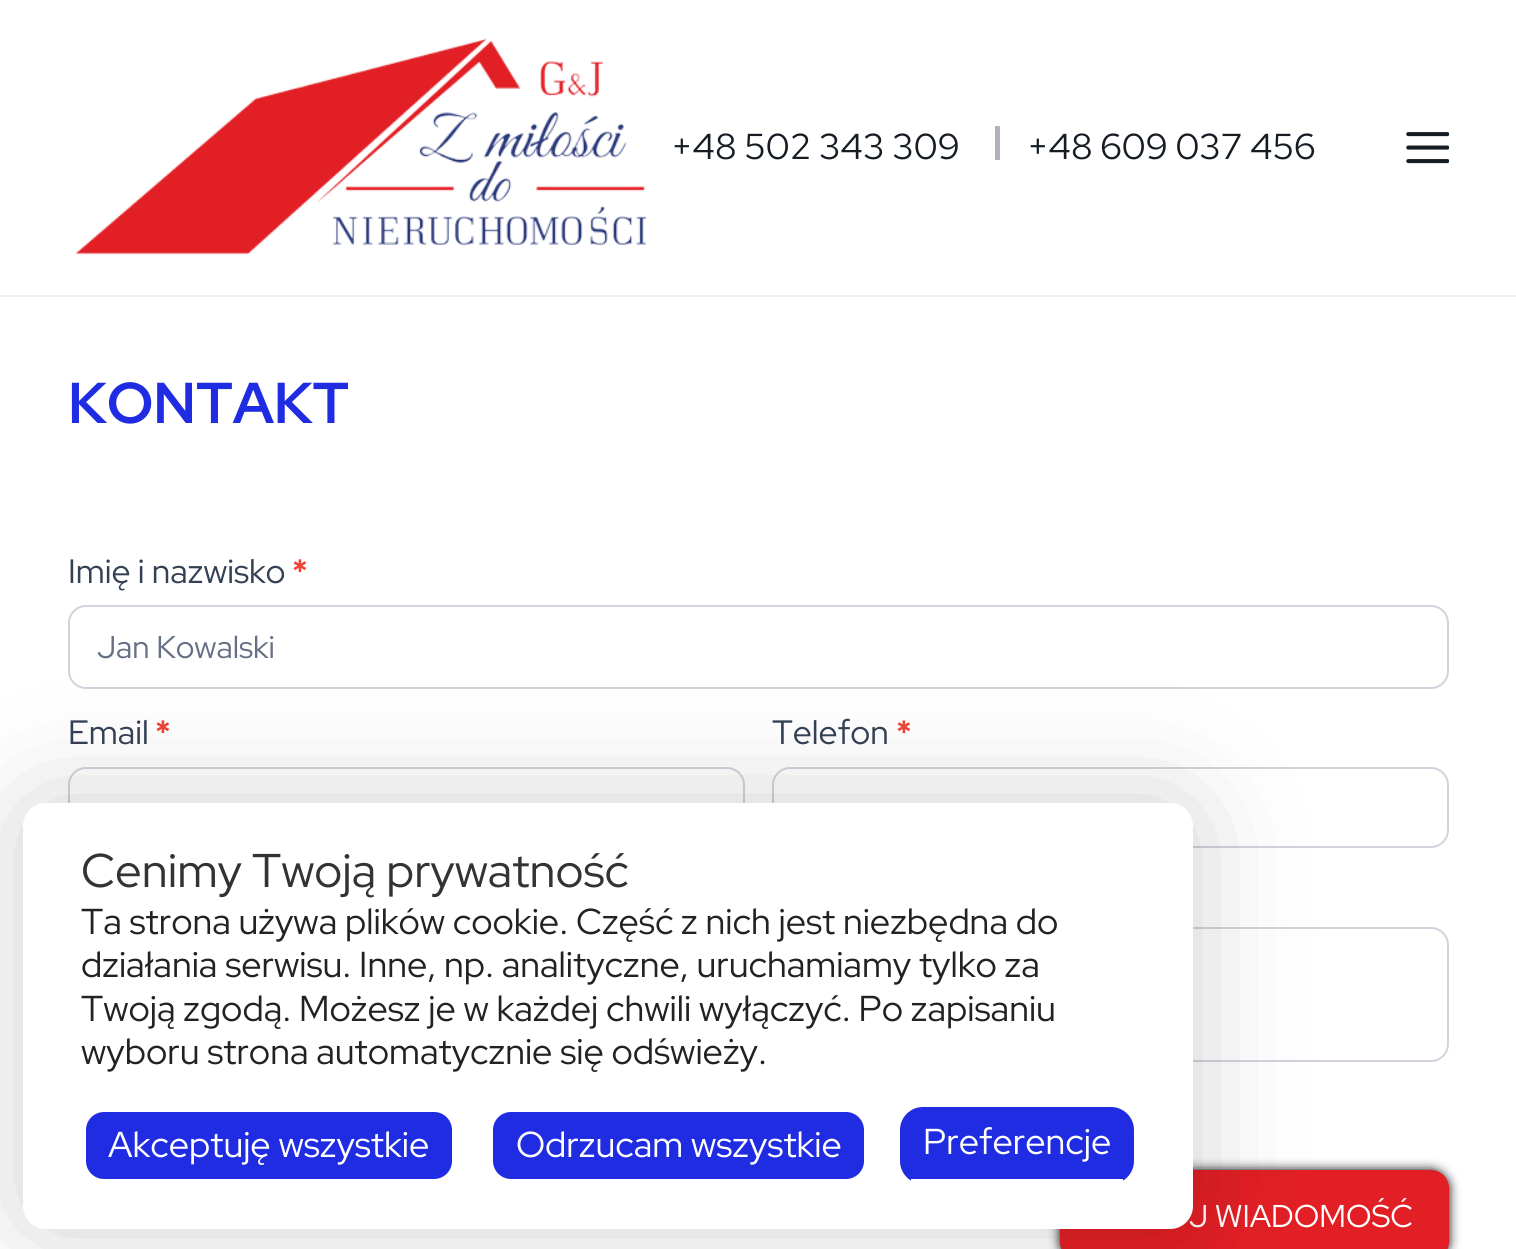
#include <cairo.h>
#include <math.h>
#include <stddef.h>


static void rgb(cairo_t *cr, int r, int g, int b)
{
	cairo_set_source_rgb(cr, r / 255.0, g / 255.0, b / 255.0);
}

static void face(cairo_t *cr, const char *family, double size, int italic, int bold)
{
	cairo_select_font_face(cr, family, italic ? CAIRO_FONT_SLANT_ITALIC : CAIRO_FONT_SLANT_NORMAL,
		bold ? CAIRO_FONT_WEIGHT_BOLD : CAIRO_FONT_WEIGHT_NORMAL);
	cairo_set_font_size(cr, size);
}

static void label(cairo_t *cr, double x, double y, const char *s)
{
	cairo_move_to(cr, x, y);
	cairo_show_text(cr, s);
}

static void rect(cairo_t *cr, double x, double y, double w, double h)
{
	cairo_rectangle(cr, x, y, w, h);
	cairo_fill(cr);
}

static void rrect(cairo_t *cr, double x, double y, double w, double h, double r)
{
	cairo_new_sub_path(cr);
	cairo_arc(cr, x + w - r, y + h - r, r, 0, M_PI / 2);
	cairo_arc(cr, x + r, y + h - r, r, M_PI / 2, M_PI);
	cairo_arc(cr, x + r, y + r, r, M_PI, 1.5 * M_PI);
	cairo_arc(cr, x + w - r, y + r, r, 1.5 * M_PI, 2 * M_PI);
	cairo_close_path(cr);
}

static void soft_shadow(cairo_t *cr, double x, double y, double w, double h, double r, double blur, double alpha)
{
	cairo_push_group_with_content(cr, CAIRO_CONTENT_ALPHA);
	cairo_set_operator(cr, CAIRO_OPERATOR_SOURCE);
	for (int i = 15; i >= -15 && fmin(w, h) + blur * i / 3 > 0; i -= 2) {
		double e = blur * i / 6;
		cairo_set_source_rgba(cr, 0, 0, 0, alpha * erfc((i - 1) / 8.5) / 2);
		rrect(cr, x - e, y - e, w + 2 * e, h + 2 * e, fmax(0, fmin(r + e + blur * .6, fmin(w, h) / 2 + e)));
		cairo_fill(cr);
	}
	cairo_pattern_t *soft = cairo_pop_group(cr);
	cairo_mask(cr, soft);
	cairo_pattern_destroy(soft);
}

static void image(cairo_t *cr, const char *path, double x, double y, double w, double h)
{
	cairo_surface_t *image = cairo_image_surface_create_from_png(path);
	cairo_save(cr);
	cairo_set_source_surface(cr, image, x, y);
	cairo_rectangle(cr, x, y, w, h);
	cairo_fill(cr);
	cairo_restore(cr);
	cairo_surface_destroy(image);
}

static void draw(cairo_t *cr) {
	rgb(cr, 255, 255, 255);
	cairo_paint(cr);
	rgb(cr, 240, 240, 240);
	rect(cr, 0, 295, 1516, 2);
	image(cr, "image0.png", 75, 38, 572, 217);
	face(cr, "Red Hat Display", 36, 0, 0);
	rgb(cr, 21, 28, 36);
	label(cr, 671, 159, "+48 502 343 309");
	rgb(cr, 178, 178, 190);
	rect(cr, 995, 126, 5, 34);
	rgb(cr, 21, 28, 36);
	label(cr, 1027, 159, "+48 609 037 456");
	image(cr, "image1.png", 1406, 132, 43, 32);
	face(cr, "Red Hat Display", 57.5, 0, 1);
	rgb(cr, 31, 44, 226);
	label(cr, 68, 423, "KONTAKT");
	face(cr, "Red Hat Display", 33.75, 0, 0);
	rgb(cr, 52, 64, 84);
	label(cr, 68, 583, "Imię i nazwisko");
	face(cr, "Red Hat Display", 33.75, 0, 1);
	rgb(cr, 240, 68, 56);
	label(cr, 292, 583, "*");
	rrect(cr, 69, 606, 1379, 82, 17);
	rgb(cr, 208, 213, 221);
	cairo_stroke(cr);
	face(cr, "Red Hat Display", 31.5, 0, 0);
	rgb(cr, 102, 112, 133);
	label(cr, 97, 658, "Jan Kowalski");
	face(cr, "Red Hat Display", 33.75, 0, 0);
	rgb(cr, 52, 64, 84);
	label(cr, 68, 744, "Email");
	face(cr, "Red Hat Display", 33.75, 0, 1);
	rgb(cr, 240, 68, 56);
	label(cr, 155, 744, "*");
	rrect(cr, 69, 768, 675, 79, 17);
	rgb(cr, 208, 213, 221);
	cairo_stroke(cr);
	face(cr, "Red Hat Display", 33.75, 0, 0);
	rgb(cr, 52, 64, 84);
	label(cr, 772, 744, "Telefon");
	face(cr, "Red Hat Display", 33.75, 0, 1);
	rgb(cr, 240, 68, 56);
	label(cr, 896, 744, "*");
	rrect(cr, 773, 768, 675, 79, 17);
	rgb(cr, 208, 213, 221);
	cairo_stroke(cr);
	rrect(cr, 69, 928, 1379, 133, 17);
	cairo_stroke(cr);
	rgb(cr, 0, 0, 0);
	soft_shadow(cr, 1060, 1170, 389, 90, 18, 5.5, 1);
	rgb(cr, 226, 31, 37);
	rrect(cr, 1061, 1171, 387, 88, 17);
	cairo_fill_preserve(cr);
	cairo_stroke(cr);
	face(cr, "Red Hat Display", 31.5, 0, 0);
	rgb(cr, 255, 255, 255);
	label(cr, 1189, 1227, "J WIADOMOŚĆ");
	rgb(cr, 0, 0, 0);
	soft_shadow(cr, 23, 803, 1170, 426, 23, 56, 0.19);
	rgb(cr, 255, 255, 255);
	rrect(cr, 23, 803, 1170, 426, 23);
	cairo_fill(cr);
	face(cr, "Red Hat Display", 47.25, 0, 0);
	rgb(cr, 51, 51, 51);
	label(cr, 81, 887, "Cenimy Twoją prywatność");
	face(cr, "Red Hat Display", 36, 0, 0);
	rgb(cr, 34, 34, 34);
	label(cr, 81, 934, "Ta strona używa plików cookie. Część z nich jest niezbędna do");
	label(cr, 81, 977, "działania serwisu. Inne, np. analityczne, uruchamiamy tylko za");
	label(cr, 81, 1021, "Twoją zgodą. Możesz je w każdej chwili wyłączyć. Po zapisaniu");
	label(cr, 81, 1064, "wyboru strona automatycznie się odświeży.");
	rgb(cr, 31, 44, 226);
	rrect(cr, 83.5, 1109.5, 371, 72, 20.5);
	cairo_fill_preserve(cr);
	rgb(cr, 255, 255, 255);
	cairo_set_line_width(cr, 5);
	cairo_stroke(cr);
	label(cr, 108, 1157, "Akceptuję wszystkie");
	rgb(cr, 31, 44, 226);
	rrect(cr, 490.5, 1109.5, 376, 72, 20.5);
	cairo_fill_preserve(cr);
	rgb(cr, 255, 255, 255);
	cairo_stroke(cr);
	label(cr, 516, 1157, "Odrzucam wszystkie");
	rgb(cr, 31, 44, 226);
	rrect(cr, 900, 1107, 234, 77, 23);
	cairo_fill(cr);
	rgb(cr, 255, 255, 255);
	rect(cr, 911, 1179, 212, 5);
	label(cr, 923, 1154, "Preferencje");
}

int main(void) {
	cairo_surface_t *surface = cairo_image_surface_create(CAIRO_FORMAT_RGB24, 1516, 1249);
	cairo_t *cr = cairo_create(surface);
	cairo_font_options_t *options = cairo_font_options_create();
	cairo_font_options_set_hint_metrics(options, CAIRO_HINT_METRICS_OFF);
	cairo_font_options_set_hint_style(options, CAIRO_HINT_STYLE_NONE);
	cairo_set_font_options(cr, options);
	cairo_set_miter_limit(cr, 4);
	draw(cr);
	cairo_surface_write_to_png(surface, "render.png");
	cairo_font_options_destroy(options);
	cairo_destroy(cr);
	cairo_surface_destroy(surface);
	return 0;
}
